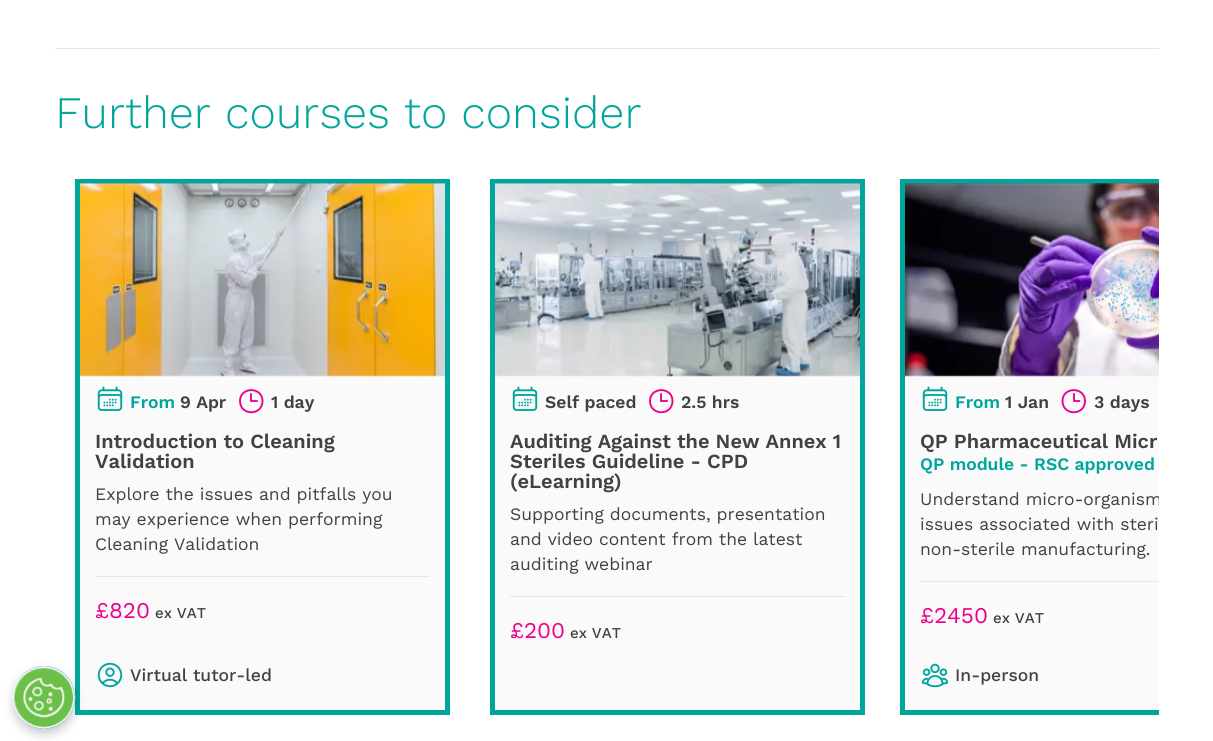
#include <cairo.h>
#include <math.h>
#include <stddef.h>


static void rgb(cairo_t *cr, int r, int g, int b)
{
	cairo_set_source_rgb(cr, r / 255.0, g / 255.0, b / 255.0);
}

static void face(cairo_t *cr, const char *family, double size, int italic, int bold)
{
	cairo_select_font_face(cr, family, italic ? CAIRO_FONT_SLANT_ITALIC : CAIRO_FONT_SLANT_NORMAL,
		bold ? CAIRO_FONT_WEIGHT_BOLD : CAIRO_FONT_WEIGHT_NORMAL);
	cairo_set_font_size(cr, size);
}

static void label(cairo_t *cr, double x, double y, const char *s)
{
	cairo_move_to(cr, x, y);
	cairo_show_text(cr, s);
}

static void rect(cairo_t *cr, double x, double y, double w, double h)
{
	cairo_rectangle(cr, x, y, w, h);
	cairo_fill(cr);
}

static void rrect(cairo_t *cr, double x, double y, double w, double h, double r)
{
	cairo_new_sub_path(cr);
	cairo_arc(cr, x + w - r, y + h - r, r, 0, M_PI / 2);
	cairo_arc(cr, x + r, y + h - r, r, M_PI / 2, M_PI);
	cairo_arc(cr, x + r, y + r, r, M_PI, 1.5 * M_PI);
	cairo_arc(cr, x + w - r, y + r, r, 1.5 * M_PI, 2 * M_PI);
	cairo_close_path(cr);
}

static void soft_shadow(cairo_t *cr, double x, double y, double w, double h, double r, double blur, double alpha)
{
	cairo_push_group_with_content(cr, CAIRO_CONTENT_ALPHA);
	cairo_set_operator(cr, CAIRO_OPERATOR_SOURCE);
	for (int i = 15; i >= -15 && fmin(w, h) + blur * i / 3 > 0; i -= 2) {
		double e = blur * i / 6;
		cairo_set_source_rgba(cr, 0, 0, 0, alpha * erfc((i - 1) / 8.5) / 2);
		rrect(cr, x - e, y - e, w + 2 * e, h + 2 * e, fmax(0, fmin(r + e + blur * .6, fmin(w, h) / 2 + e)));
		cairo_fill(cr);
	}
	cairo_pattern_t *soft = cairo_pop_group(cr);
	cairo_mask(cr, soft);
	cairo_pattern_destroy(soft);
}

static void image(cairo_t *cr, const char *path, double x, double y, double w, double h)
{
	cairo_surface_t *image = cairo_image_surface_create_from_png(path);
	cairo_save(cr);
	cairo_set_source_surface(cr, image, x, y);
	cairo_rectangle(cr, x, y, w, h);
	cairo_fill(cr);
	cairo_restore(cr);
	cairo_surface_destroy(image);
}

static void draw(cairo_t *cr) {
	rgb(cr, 255, 255, 255);
	cairo_paint(cr);
	rgb(cr, 229, 231, 235);
	rect(cr, 55, 48, 1104, 1);
	face(cr, "Work Sans Light", 45, 0, 0);
	rgb(cr, 0, 166, 156);
	label(cr, 55, 128, "Further courses to consider");
	rgb(cr, 250, 250, 250);
	cairo_rectangle(cr, 77.5, 181.5, 370, 531);
	cairo_fill_preserve(cr);
	rgb(cr, 0, 166, 156);
	cairo_set_line_width(cr, 5);
	cairo_stroke(cr);
	image(cr, "image0.png", 80, 183, 365, 194);
	image(cr, "image1.png", 97, 386, 26, 25);
	face(cr, "Work Sans SemiBold", 17.5, 0, 0);
	label(cr, 130, 408, "From");
	rgb(cr, 65, 65, 65);
	label(cr, 180, 408, "9 Apr");
	cairo_new_path(cr);
	cairo_move_to(cr, 251, 394);
	cairo_line_to(cr, 251, 401);
	cairo_line_to(cr, 257, 401);
	cairo_move_to(cr, 262.5, 401);
	cairo_curve_to(cr, 262.5, 416, 240, 416, 240, 401);
	cairo_curve_to(cr, 240, 386.5, 262.5, 386.5, 262.5, 401);
	cairo_close_path(cr);
	rgb(cr, 235, 0, 140);
	cairo_set_line_width(cr, 1.9);
	cairo_set_line_cap(cr, CAIRO_LINE_CAP_ROUND);
	cairo_set_line_join(cr, CAIRO_LINE_JOIN_ROUND);
	cairo_stroke(cr);
	rgb(cr, 65, 65, 65);
	label(cr, 271, 408, "1 day");
	face(cr, "Work Sans SemiBold", 20, 0, 0);
	label(cr, 95, 448, "Introduction to Cleaning");
	label(cr, 95, 468, "Validation");
	face(cr, "Work Sans", 17.5, 0, 0);
	label(cr, 95, 500, "Explore the issues and pitfalls you");
	label(cr, 95, 525, "may experience when performing");
	label(cr, 95, 550, "Cleaning Validation");
	rgb(cr, 229, 231, 235);
	rect(cr, 95, 576, 335, 1);
	face(cr, "Work Sans", 22.5, 0, 0);
	rgb(cr, 235, 0, 140);
	label(cr, 95, 618, "£820");
	face(cr, "Work Sans Medium", 15, 0, 0);
	rgb(cr, 65, 65, 65);
	label(cr, 155, 618, "ex VAT");
	image(cr, "image2.png", 97, 662, 26, 26);
	face(cr, "Work Sans Medium", 17.5, 0, 0);
	label(cr, 130, 681, "Virtual tutor-led");
	rgb(cr, 250, 250, 250);
	cairo_rectangle(cr, 492.5, 181.5, 370, 531);
	cairo_fill_preserve(cr);
	rgb(cr, 0, 166, 156);
	cairo_set_line_width(cr, 5);
	cairo_set_line_cap(cr, CAIRO_LINE_CAP_BUTT);
	cairo_set_line_join(cr, CAIRO_LINE_JOIN_MITER);
	cairo_stroke(cr);
	image(cr, "image3.png", 495, 183, 365, 194);
	image(cr, "image1.png", 512, 386, 26, 25);
	face(cr, "Work Sans SemiBold", 17.5, 0, 0);
	rgb(cr, 65, 65, 65);
	label(cr, 545, 408, "Self paced");
	cairo_new_path(cr);
	cairo_move_to(cr, 661, 394);
	cairo_line_to(cr, 661, 401);
	cairo_line_to(cr, 667, 401);
	cairo_move_to(cr, 672.5, 401);
	cairo_curve_to(cr, 672.5, 416, 650, 416, 650, 401);
	cairo_curve_to(cr, 650, 386.5, 672.5, 386.5, 672.5, 401);
	cairo_close_path(cr);
	rgb(cr, 235, 0, 140);
	cairo_set_line_width(cr, 1.9);
	cairo_set_line_cap(cr, CAIRO_LINE_CAP_ROUND);
	cairo_set_line_join(cr, CAIRO_LINE_JOIN_ROUND);
	cairo_stroke(cr);
	rgb(cr, 65, 65, 65);
	label(cr, 681, 408, "2.5 hrs");
	face(cr, "Work Sans SemiBold", 20, 0, 0);
	label(cr, 510, 448, "Auditing Against the New Annex 1");
	label(cr, 510, 468, "Steriles Guideline - CPD");
	label(cr, 510, 488, "(eLearning)");
	face(cr, "Work Sans", 17.5, 0, 0);
	label(cr, 510, 520, "Supporting documents, presentation");
	label(cr, 510, 545, "and video content from the latest");
	label(cr, 510, 570, "auditing webinar");
	rgb(cr, 229, 231, 235);
	rect(cr, 510, 596, 335, 1);
	face(cr, "Work Sans", 22.5, 0, 0);
	rgb(cr, 235, 0, 140);
	label(cr, 510, 638, "£200");
	face(cr, "Work Sans Medium", 15, 0, 0);
	rgb(cr, 65, 65, 65);
	label(cr, 570, 638, "ex VAT");
	rgb(cr, 250, 250, 250);
	rect(cr, 905, 184, 254, 526);
	cairo_save(cr);
	cairo_rectangle(cr, 55, 179, 1104, 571);
	cairo_clip(cr);
	cairo_rectangle(cr, 902.5, 181.5, 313, 531);
	rgb(cr, 0, 166, 156);
	cairo_set_line_width(cr, 5);
	cairo_set_line_cap(cr, CAIRO_LINE_CAP_BUTT);
	cairo_set_line_join(cr, CAIRO_LINE_JOIN_MITER);
	cairo_stroke(cr);
	cairo_restore(cr);
	image(cr, "image4.png", 905, 183, 254, 194);
	image(cr, "image1.png", 922, 386, 26, 25);
	face(cr, "Work Sans SemiBold", 17.5, 0, 0);
	rgb(cr, 0, 166, 156);
	label(cr, 955, 408, "From");
	rgb(cr, 65, 65, 65);
	label(cr, 1005, 408, "1 Jan");
	cairo_new_path(cr);
	cairo_move_to(cr, 1074, 394);
	cairo_line_to(cr, 1074, 401);
	cairo_line_to(cr, 1079.5, 401);
	cairo_move_to(cr, 1085, 401);
	cairo_curve_to(cr, 1085, 416, 1062.5, 416, 1062.5, 401);
	cairo_curve_to(cr, 1062.5, 386.5, 1085, 386.5, 1085, 401);
	cairo_close_path(cr);
	rgb(cr, 235, 0, 140);
	cairo_stroke(cr);
	rgb(cr, 65, 65, 65);
	label(cr, 1094, 408, "3 days");
	face(cr, "Work Sans SemiBold", 20, 0, 0);
	label(cr, 920, 448, "QP Pharmaceutical Micr");
	face(cr, "Work Sans SemiBold", 17.5, 0, 0);
	rgb(cr, 0, 166, 156);
	label(cr, 920, 470, "QP module - RSC approved");
	cairo_save(cr);
	cairo_rectangle(cr, 55, 179, 1104, 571);
	cairo_clip(cr);
	face(cr, "Work Sans", 17.5, 0, 0);
	rgb(cr, 65, 65, 65);
	label(cr, 920, 505, "Understand micro-organism");
	cairo_restore(cr);
	face(cr, "Work Sans", 17.5, 0, 0);
	rgb(cr, 65, 65, 65);
	label(cr, 920, 530, "issues associated with steri");
	label(cr, 920, 555, "non-sterile manufacturing.");
	rgb(cr, 229, 231, 235);
	rect(cr, 920, 581, 239, 1);
	face(cr, "Work Sans", 22.5, 0, 0);
	rgb(cr, 235, 0, 140);
	label(cr, 920, 623, "£2450");
	face(cr, "Work Sans Medium", 15, 0, 0);
	rgb(cr, 65, 65, 65);
	label(cr, 993, 623, "ex VAT");
	image(cr, "image5.png", 921, 663, 28, 25);
	face(cr, "Work Sans Medium", 17.5, 0, 0);
	label(cr, 955, 681, "In-person");
	rgb(cr, 0, 0, 0);
	soft_shadow(cr, 13, 671, 62, 63, 31, 5, 0.2);
	rgb(cr, 106, 170, 228);
	rrect(cr, 13, 666, 62, 63, 31);
	cairo_fill(cr);
	image(cr, "image6.png", 12, 666, 64, 64);
}

int main(void) {
	cairo_surface_t *surface = cairo_image_surface_create(CAIRO_FORMAT_RGB24, 1213, 741);
	cairo_t *cr = cairo_create(surface);
	cairo_font_options_t *options = cairo_font_options_create();
	cairo_font_options_set_hint_metrics(options, CAIRO_HINT_METRICS_OFF);
	cairo_font_options_set_hint_style(options, CAIRO_HINT_STYLE_NONE);
	cairo_set_font_options(cr, options);
	cairo_set_miter_limit(cr, 4);
	draw(cr);
	cairo_surface_write_to_png(surface, "render.png");
	cairo_font_options_destroy(options);
	cairo_destroy(cr);
	cairo_surface_destroy(surface);
	return 0;
}
